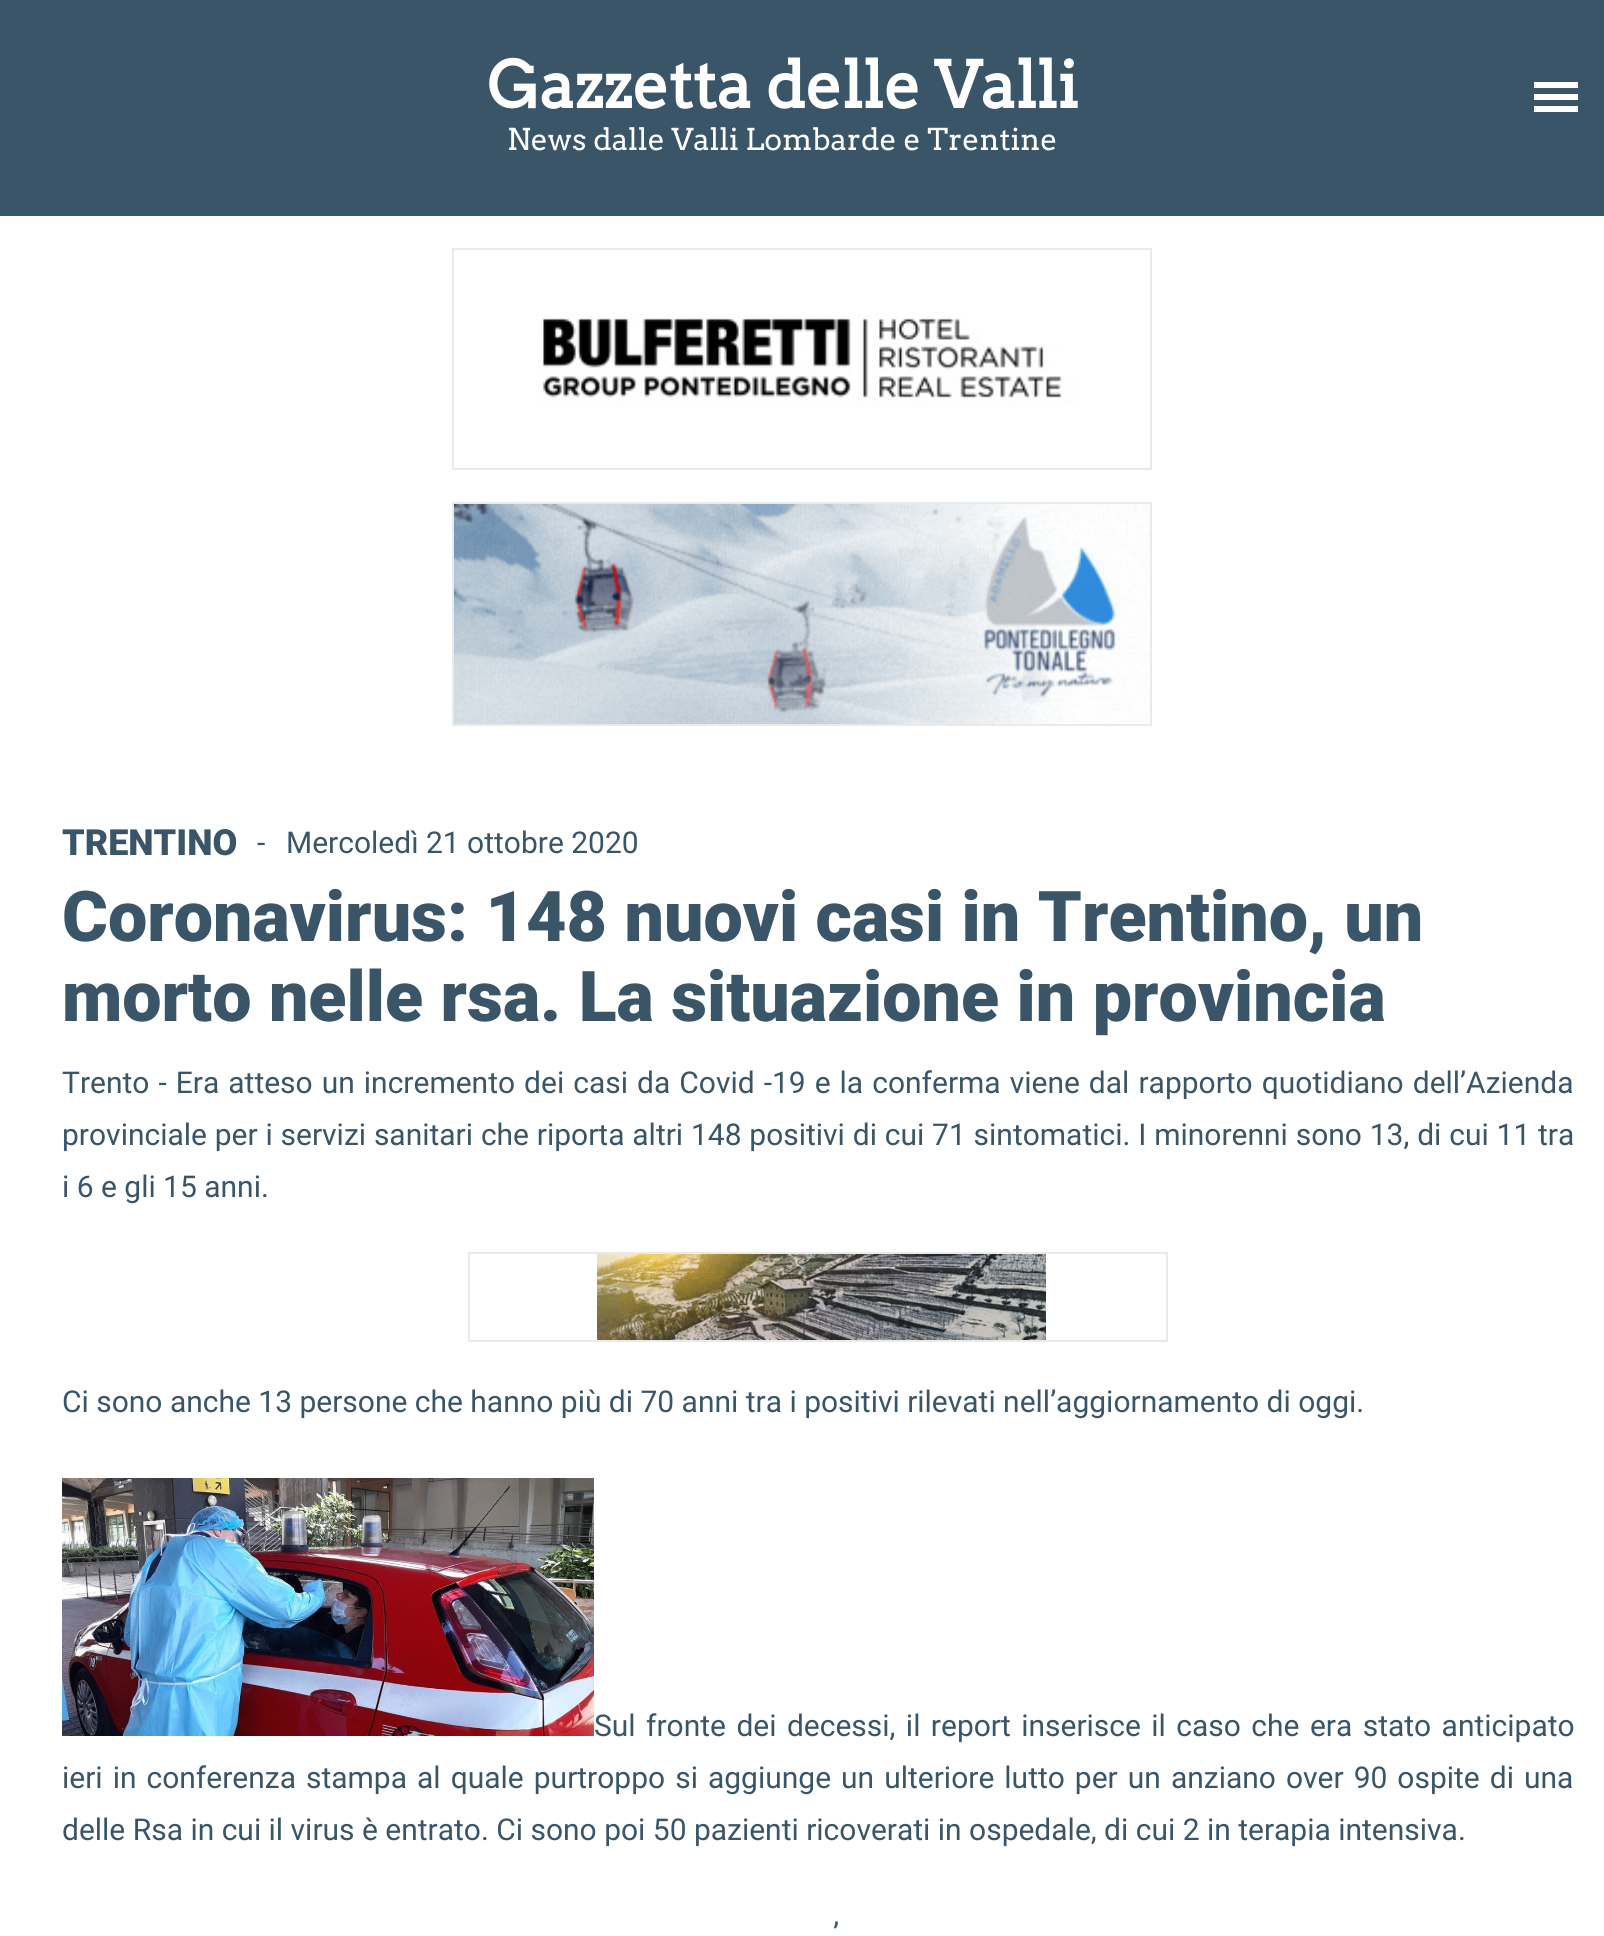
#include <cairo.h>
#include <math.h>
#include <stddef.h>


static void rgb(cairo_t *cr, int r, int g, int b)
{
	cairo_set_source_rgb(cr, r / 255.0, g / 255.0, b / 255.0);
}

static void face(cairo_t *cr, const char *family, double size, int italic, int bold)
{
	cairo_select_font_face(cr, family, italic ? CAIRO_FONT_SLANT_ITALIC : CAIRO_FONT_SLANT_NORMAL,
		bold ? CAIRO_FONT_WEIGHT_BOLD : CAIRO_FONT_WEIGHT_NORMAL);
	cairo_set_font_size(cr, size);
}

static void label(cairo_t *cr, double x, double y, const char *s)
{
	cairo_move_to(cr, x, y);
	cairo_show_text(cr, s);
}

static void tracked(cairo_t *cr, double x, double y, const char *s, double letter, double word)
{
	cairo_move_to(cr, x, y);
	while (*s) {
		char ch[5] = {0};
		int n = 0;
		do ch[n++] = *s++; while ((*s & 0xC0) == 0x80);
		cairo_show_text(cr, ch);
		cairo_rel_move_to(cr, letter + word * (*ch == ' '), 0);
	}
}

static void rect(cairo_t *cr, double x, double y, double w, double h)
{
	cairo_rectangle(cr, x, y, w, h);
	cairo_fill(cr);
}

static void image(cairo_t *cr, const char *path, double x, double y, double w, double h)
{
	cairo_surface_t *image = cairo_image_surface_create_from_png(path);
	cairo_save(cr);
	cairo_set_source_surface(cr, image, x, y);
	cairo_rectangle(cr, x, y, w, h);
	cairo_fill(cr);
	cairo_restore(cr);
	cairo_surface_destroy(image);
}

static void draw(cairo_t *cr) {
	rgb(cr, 255, 255, 255);
	cairo_paint(cr);
	rgb(cr, 57, 85, 103);
	rect(cr, 0, 0, 1604, 216);
	rgb(cr, 255, 255, 255);
	rect(cr, 1534, 82, 44, 6);
	rect(cr, 1534, 94, 44, 6);
	rect(cr, 1534, 106, 44, 6);
	face(cr, "Arvo", 64, 0, 1);
	label(cr, 487, 108, "Gazzetta delle Valli");
	face(cr, "Arvo", 30, 0, 0);
	label(cr, 507, 150, "News dalle Valli Lombarde e Trentine");
	cairo_rectangle(cr, 453, 249, 698, 220);
	rgb(cr, 234, 234, 234);
	cairo_stroke(cr);
	image(cr, "image0.png", 536, 314, 538, 94);
	cairo_rectangle(cr, 453, 503, 698, 222);
	cairo_stroke(cr);
	image(cr, "image1.png", 454, 504, 696, 220);
	face(cr, "Roboto Black", 36, 0, 0);
	rgb(cr, 57, 85, 103);
	label(cr, 62, 855, "TRENTINO");
	face(cr, "Roboto", 30, 0, 0);
	label(cr, 257, 853, "-");
	label(cr, 286, 853, "Mercoledì 21 ottobre 2020");
	face(cr, "Roboto Black", 70, 0, 0);
	label(cr, 62, 941, "Coronavirus: 148 nuovi casi in Trentino, un");
	label(cr, 62, 1021, "morto nelle rsa. La situazione in provincia");
	face(cr, "Roboto", 30, 0, 0);
	tracked(cr, 62, 1093, "Trento - Era atteso un incremento dei casi da Covid -19 e la conferma viene dal rapporto quotidiano dell’Azienda", 0, 1.6);
	tracked(cr, 62, 1145, "provinciale per i servizi sanitari che riporta altri 148 positivi di cui 71 sintomatici. I minorenni sono 13, di cui 11 tra", 0, 0.4);
	label(cr, 62, 1197, "i 6 e gli 15 anni.");
	cairo_rectangle(cr, 469, 1253, 698, 88);
	rgb(cr, 234, 234, 234);
	cairo_stroke(cr);
	image(cr, "image2.png", 597, 1254, 449, 86);
	rgb(cr, 57, 85, 103);
	label(cr, 62, 1412, "Ci sono anche 13 persone che hanno più di 70 anni tra i positivi rilevati nell’aggiornamento di oggi.");
	image(cr, "image3.png", 62, 1478, 532, 258);
	tracked(cr, 594, 1736, "Sul fronte dei decessi, il report inserisce il caso che era stato anticipato", 0, 3);
	tracked(cr, 62, 1788, "ieri in conferenza stampa al quale purtroppo si aggiunge un ulteriore lutto per un anziano over 90 ospite di una", 0, 2.6);
	label(cr, 62, 1840, "delle Rsa in cui il virus è entrato. Ci sono poi 50 pazienti ricoverati in ospedale, di cui 2 in terapia intensiva.");
	tracked(cr, 833, 1944, "’", 0, 4);
}

int main(void) {
	cairo_surface_t *surface = cairo_image_surface_create(CAIRO_FORMAT_RGB24, 1604, 1936);
	cairo_t *cr = cairo_create(surface);
	cairo_font_options_t *options = cairo_font_options_create();
	cairo_font_options_set_hint_metrics(options, CAIRO_HINT_METRICS_OFF);
	cairo_font_options_set_hint_style(options, CAIRO_HINT_STYLE_NONE);
	cairo_set_font_options(cr, options);
	cairo_set_miter_limit(cr, 4);
	draw(cr);
	cairo_surface_write_to_png(surface, "render.png");
	cairo_font_options_destroy(options);
	cairo_destroy(cr);
	cairo_surface_destroy(surface);
	return 0;
}
